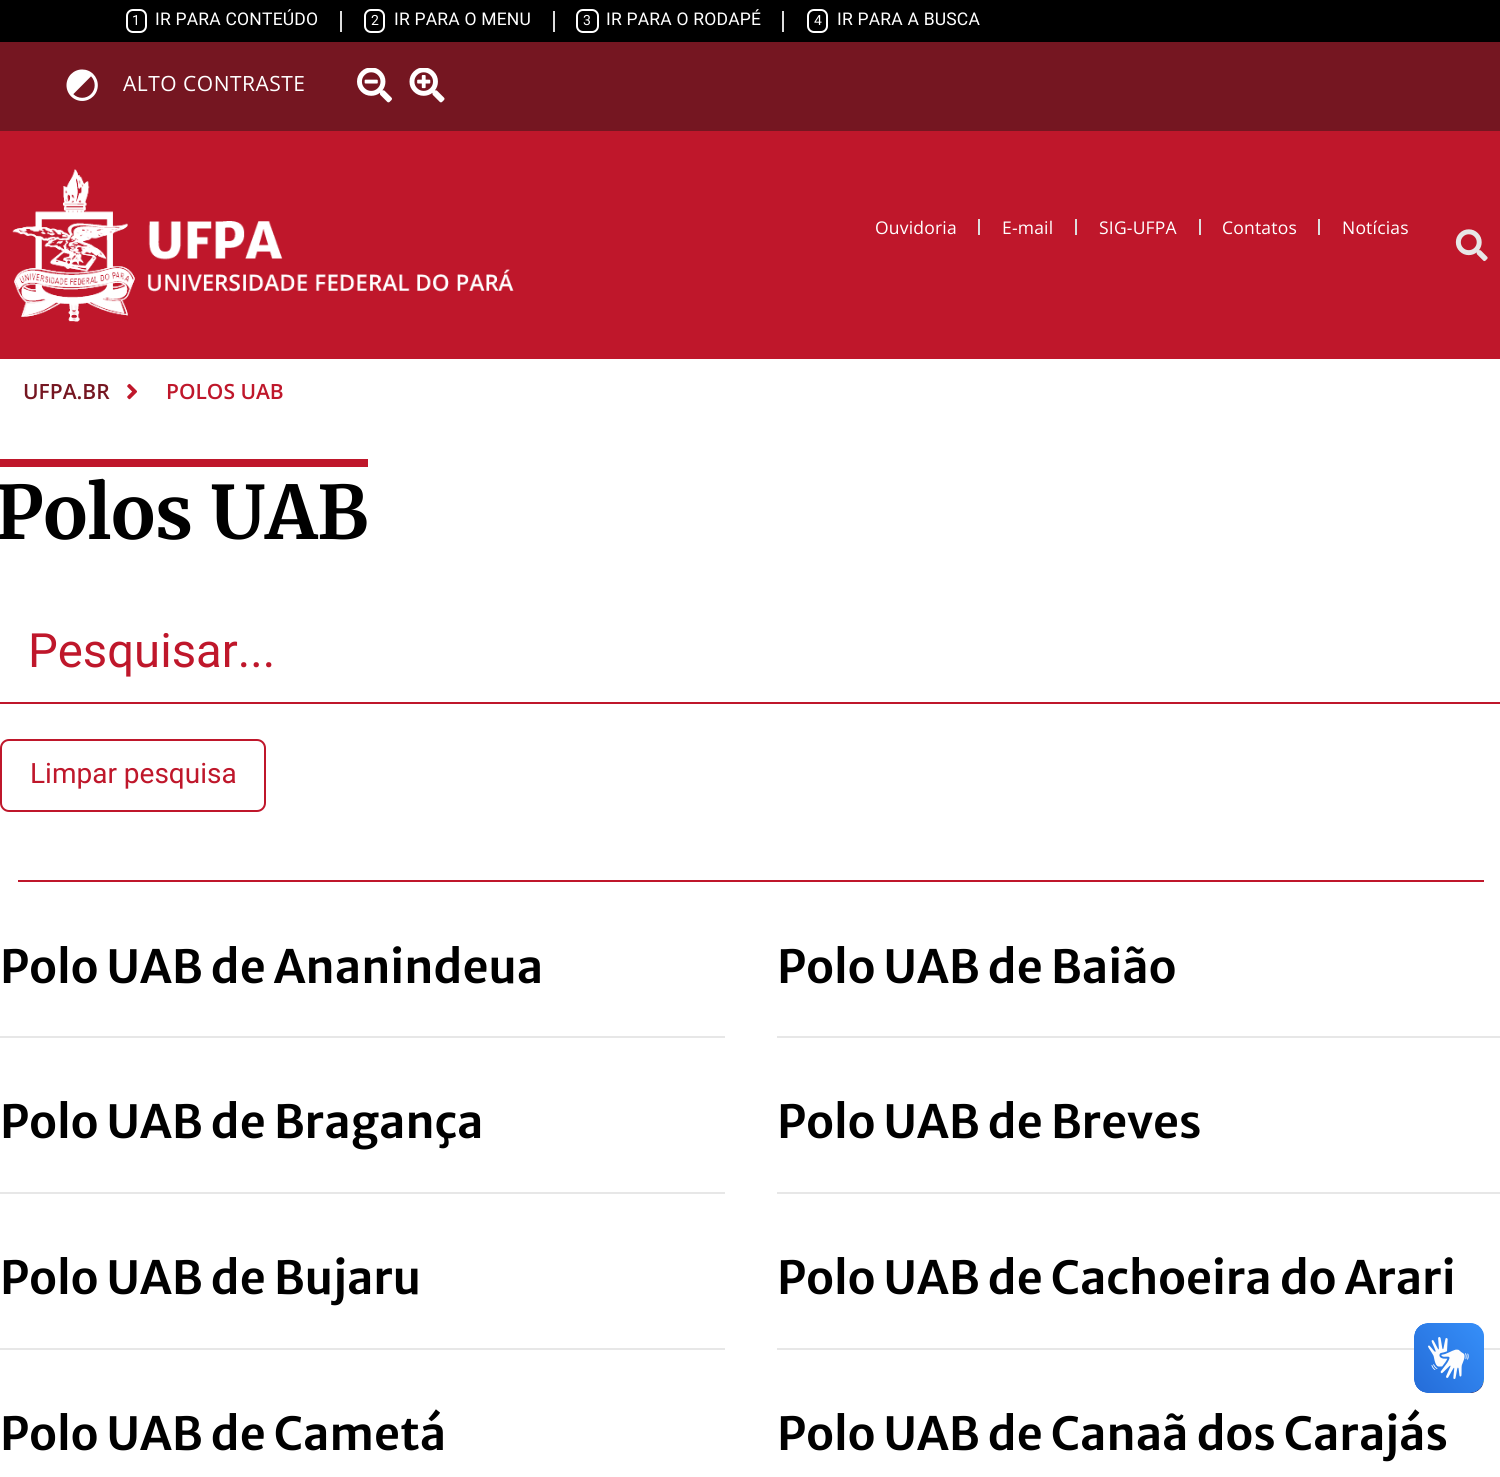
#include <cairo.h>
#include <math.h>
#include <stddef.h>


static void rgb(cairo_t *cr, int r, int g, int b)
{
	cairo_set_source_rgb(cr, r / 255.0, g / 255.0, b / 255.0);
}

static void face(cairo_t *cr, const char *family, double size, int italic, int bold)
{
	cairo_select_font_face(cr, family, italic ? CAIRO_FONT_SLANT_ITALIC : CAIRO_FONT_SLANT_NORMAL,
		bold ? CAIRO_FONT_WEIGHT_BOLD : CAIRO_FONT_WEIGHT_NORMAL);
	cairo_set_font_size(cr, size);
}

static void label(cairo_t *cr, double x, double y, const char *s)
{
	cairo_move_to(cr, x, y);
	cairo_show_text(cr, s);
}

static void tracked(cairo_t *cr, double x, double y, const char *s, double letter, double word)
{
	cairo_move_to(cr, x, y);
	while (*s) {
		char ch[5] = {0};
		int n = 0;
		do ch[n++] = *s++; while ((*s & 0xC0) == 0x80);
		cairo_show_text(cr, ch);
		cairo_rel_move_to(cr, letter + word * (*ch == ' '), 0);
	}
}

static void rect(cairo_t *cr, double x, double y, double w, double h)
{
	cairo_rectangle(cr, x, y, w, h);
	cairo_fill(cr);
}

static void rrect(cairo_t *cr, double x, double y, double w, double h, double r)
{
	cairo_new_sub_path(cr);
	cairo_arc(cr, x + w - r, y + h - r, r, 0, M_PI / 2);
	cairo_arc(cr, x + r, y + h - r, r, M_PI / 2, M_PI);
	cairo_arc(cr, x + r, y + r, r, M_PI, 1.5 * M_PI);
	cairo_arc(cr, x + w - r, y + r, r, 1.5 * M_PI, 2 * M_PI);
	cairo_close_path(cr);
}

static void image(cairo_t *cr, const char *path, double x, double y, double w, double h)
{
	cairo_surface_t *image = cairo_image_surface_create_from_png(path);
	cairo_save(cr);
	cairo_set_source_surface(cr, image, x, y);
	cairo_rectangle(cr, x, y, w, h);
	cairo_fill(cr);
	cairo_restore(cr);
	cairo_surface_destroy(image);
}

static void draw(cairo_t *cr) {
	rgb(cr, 255, 255, 255);
	cairo_paint(cr);
	rgb(cr, 0, 0, 0);
	rect(cr, 0, 0, 1500, 42);
	rrect(cr, 127, 10, 19, 22, 6);
	rgb(cr, 255, 255, 255);
	cairo_stroke(cr);
	face(cr, "Roboto", 14, 0, 0);
	tracked(cr, 132, 25, "1", 0.2, 0);
	face(cr, "Roboto", 17.5, 0, 0);
	tracked(cr, 155, 25, "IR PARA CONTEÚDO", 0.2, 0);
	rgb(cr, 221, 221, 221);
	rect(cr, 340, 11, 2, 21);
	rrect(cr, 365, 10, 19, 22, 6);
	rgb(cr, 255, 255, 255);
	cairo_stroke(cr);
	face(cr, "Roboto", 14, 0, 0);
	tracked(cr, 371, 25, "2", 0.2, 0);
	face(cr, "Roboto", 17.5, 0, 0);
	tracked(cr, 394, 25, "IR PARA O MENU", 0.2, 0);
	rgb(cr, 221, 221, 221);
	rect(cr, 553, 11, 2, 21);
	rrect(cr, 577, 10, 21, 22, 6);
	rgb(cr, 255, 255, 255);
	cairo_stroke(cr);
	face(cr, "Roboto", 14, 0, 0);
	tracked(cr, 583, 25, "3", 0.2, 0);
	face(cr, "Roboto", 17.5, 0, 0);
	tracked(cr, 606, 25, "IR PARA O RODAPÉ", 0.2, 0);
	rgb(cr, 221, 221, 221);
	rect(cr, 782, 11, 2, 21);
	rrect(cr, 808, 10, 19, 22, 6);
	rgb(cr, 255, 255, 255);
	cairo_stroke(cr);
	face(cr, "Roboto", 14, 0, 0);
	tracked(cr, 814, 25, "4", 0.2, 0);
	face(cr, "Roboto", 17.5, 0, 0);
	tracked(cr, 837, 25, "IR PARA A BUSCA", 0.2, 0);
	rgb(cr, 117, 22, 33);
	rect(cr, 0, 42, 1500, 89);
	image(cr, "image0.png", 66, 69, 32, 32);
	face(cr, "Open Sans", 21, 0, 0);
	rgb(cr, 255, 255, 255);
	tracked(cr, 123, 91, "ALTO CONTRASTE", 0.5, 0);
	image(cr, "image1.png", 357, 68, 35, 35);
	image(cr, "image2.png", 409, 68, 36, 35);
	rgb(cr, 191, 23, 43);
	rect(cr, 0, 131, 1500, 228);
	image(cr, "image3.png", 12, 169, 502, 153);
	face(cr, "Open Sans", 17.5, 0, 0);
	rgb(cr, 255, 255, 255);
	tracked(cr, 875, 234, "Ouvidoria", 0.2, 0);
	rgb(cr, 221, 221, 221);
	rect(cr, 978, 219, 2, 16);
	rgb(cr, 255, 255, 255);
	tracked(cr, 1002, 234, "E-mail", 0.2, 0);
	rgb(cr, 221, 221, 221);
	rect(cr, 1075, 219, 2, 16);
	rgb(cr, 255, 255, 255);
	tracked(cr, 1099, 234, "SIG-UFPA", 0.2, 0);
	rgb(cr, 221, 221, 221);
	rect(cr, 1199, 219, 2, 16);
	rgb(cr, 255, 255, 255);
	tracked(cr, 1222, 234, "Contatos", 0.2, 0);
	rgb(cr, 221, 221, 221);
	rect(cr, 1318, 219, 2, 16);
	rgb(cr, 255, 255, 255);
	tracked(cr, 1342, 234, "Notícias", 0.2, 0);
	image(cr, "image4.png", 1455, 229, 33, 33);
	face(cr, "Open Sans SemiBold", 21, 0, 0);
	rgb(cr, 117, 22, 33);
	label(cr, 23, 399, "UFPA.BR");
	image(cr, "image5.png", 127, 383, 10, 17);
	rgb(cr, 191, 23, 43);
	label(cr, 166, 399, "POLOS UAB");
	rect(cr, 0, 459, 368, 8);
	face(cr, "Merriweather", 73.5, 0, 1);
	rgb(cr, 0, 0, 0);
	label(cr, -5, 539, "Polos UAB");
	rgb(cr, 191, 23, 43);
	rect(cr, 0, 702, 1500, 2);
	face(cr, "Roboto", 47.25, 0, 0);
	label(cr, 28, 667, "Pesquisar...");
	rrect(cr, 1, 740, 264, 71, 8);
	cairo_stroke(cr);
	face(cr, "Roboto", 28, 0, 0);
	label(cr, 30, 783, "Limpar pesquisa");
	rect(cr, 18, 880, 1466, 2);
	rgb(cr, 231, 231, 231);
	rect(cr, 0, 1036, 725, 2);
	face(cr, "Merriweather Sans SemiBold", 45.5, 0, 0);
	rgb(cr, 0, 0, 0);
	label(cr, 0, 983, "Polo UAB de Ananindeua");
	rgb(cr, 231, 231, 231);
	rect(cr, 777, 1036, 723, 2);
	rgb(cr, 0, 0, 0);
	label(cr, 777, 983, "Polo UAB de Baião");
	rgb(cr, 231, 231, 231);
	rect(cr, 0, 1192, 725, 2);
	rgb(cr, 0, 0, 0);
	label(cr, 0, 1138, "Polo UAB de Bragança");
	rgb(cr, 231, 231, 231);
	rect(cr, 777, 1192, 723, 2);
	rgb(cr, 0, 0, 0);
	label(cr, 777, 1138, "Polo UAB de Breves");
	rgb(cr, 231, 231, 231);
	rect(cr, 0, 1348, 725, 2);
	rgb(cr, 0, 0, 0);
	label(cr, 0, 1294, "Polo UAB de Bujaru");
	rgb(cr, 231, 231, 231);
	rect(cr, 777, 1348, 723, 2);
	rgb(cr, 0, 0, 0);
	label(cr, 777, 1294, "Polo UAB de Cachoeira do Arari");
	label(cr, 0, 1450, "Polo UAB de Cametá");
	label(cr, 777, 1450, "Polo UAB de Canaã dos Carajás");
	image(cr, "image6.png", 1414, 1323, 70, 70);
	image(cr, "image7.png", 1414, 1323, 70, 70);
}

int main(void) {
	cairo_surface_t *surface = cairo_image_surface_create(CAIRO_FORMAT_RGB24, 1500, 1477);
	cairo_t *cr = cairo_create(surface);
	cairo_font_options_t *options = cairo_font_options_create();
	cairo_font_options_set_hint_metrics(options, CAIRO_HINT_METRICS_OFF);
	cairo_font_options_set_hint_style(options, CAIRO_HINT_STYLE_NONE);
	cairo_set_font_options(cr, options);
	cairo_set_miter_limit(cr, 4);
	draw(cr);
	cairo_surface_write_to_png(surface, "render.png");
	cairo_font_options_destroy(options);
	cairo_destroy(cr);
	cairo_surface_destroy(surface);
	return 0;
}
